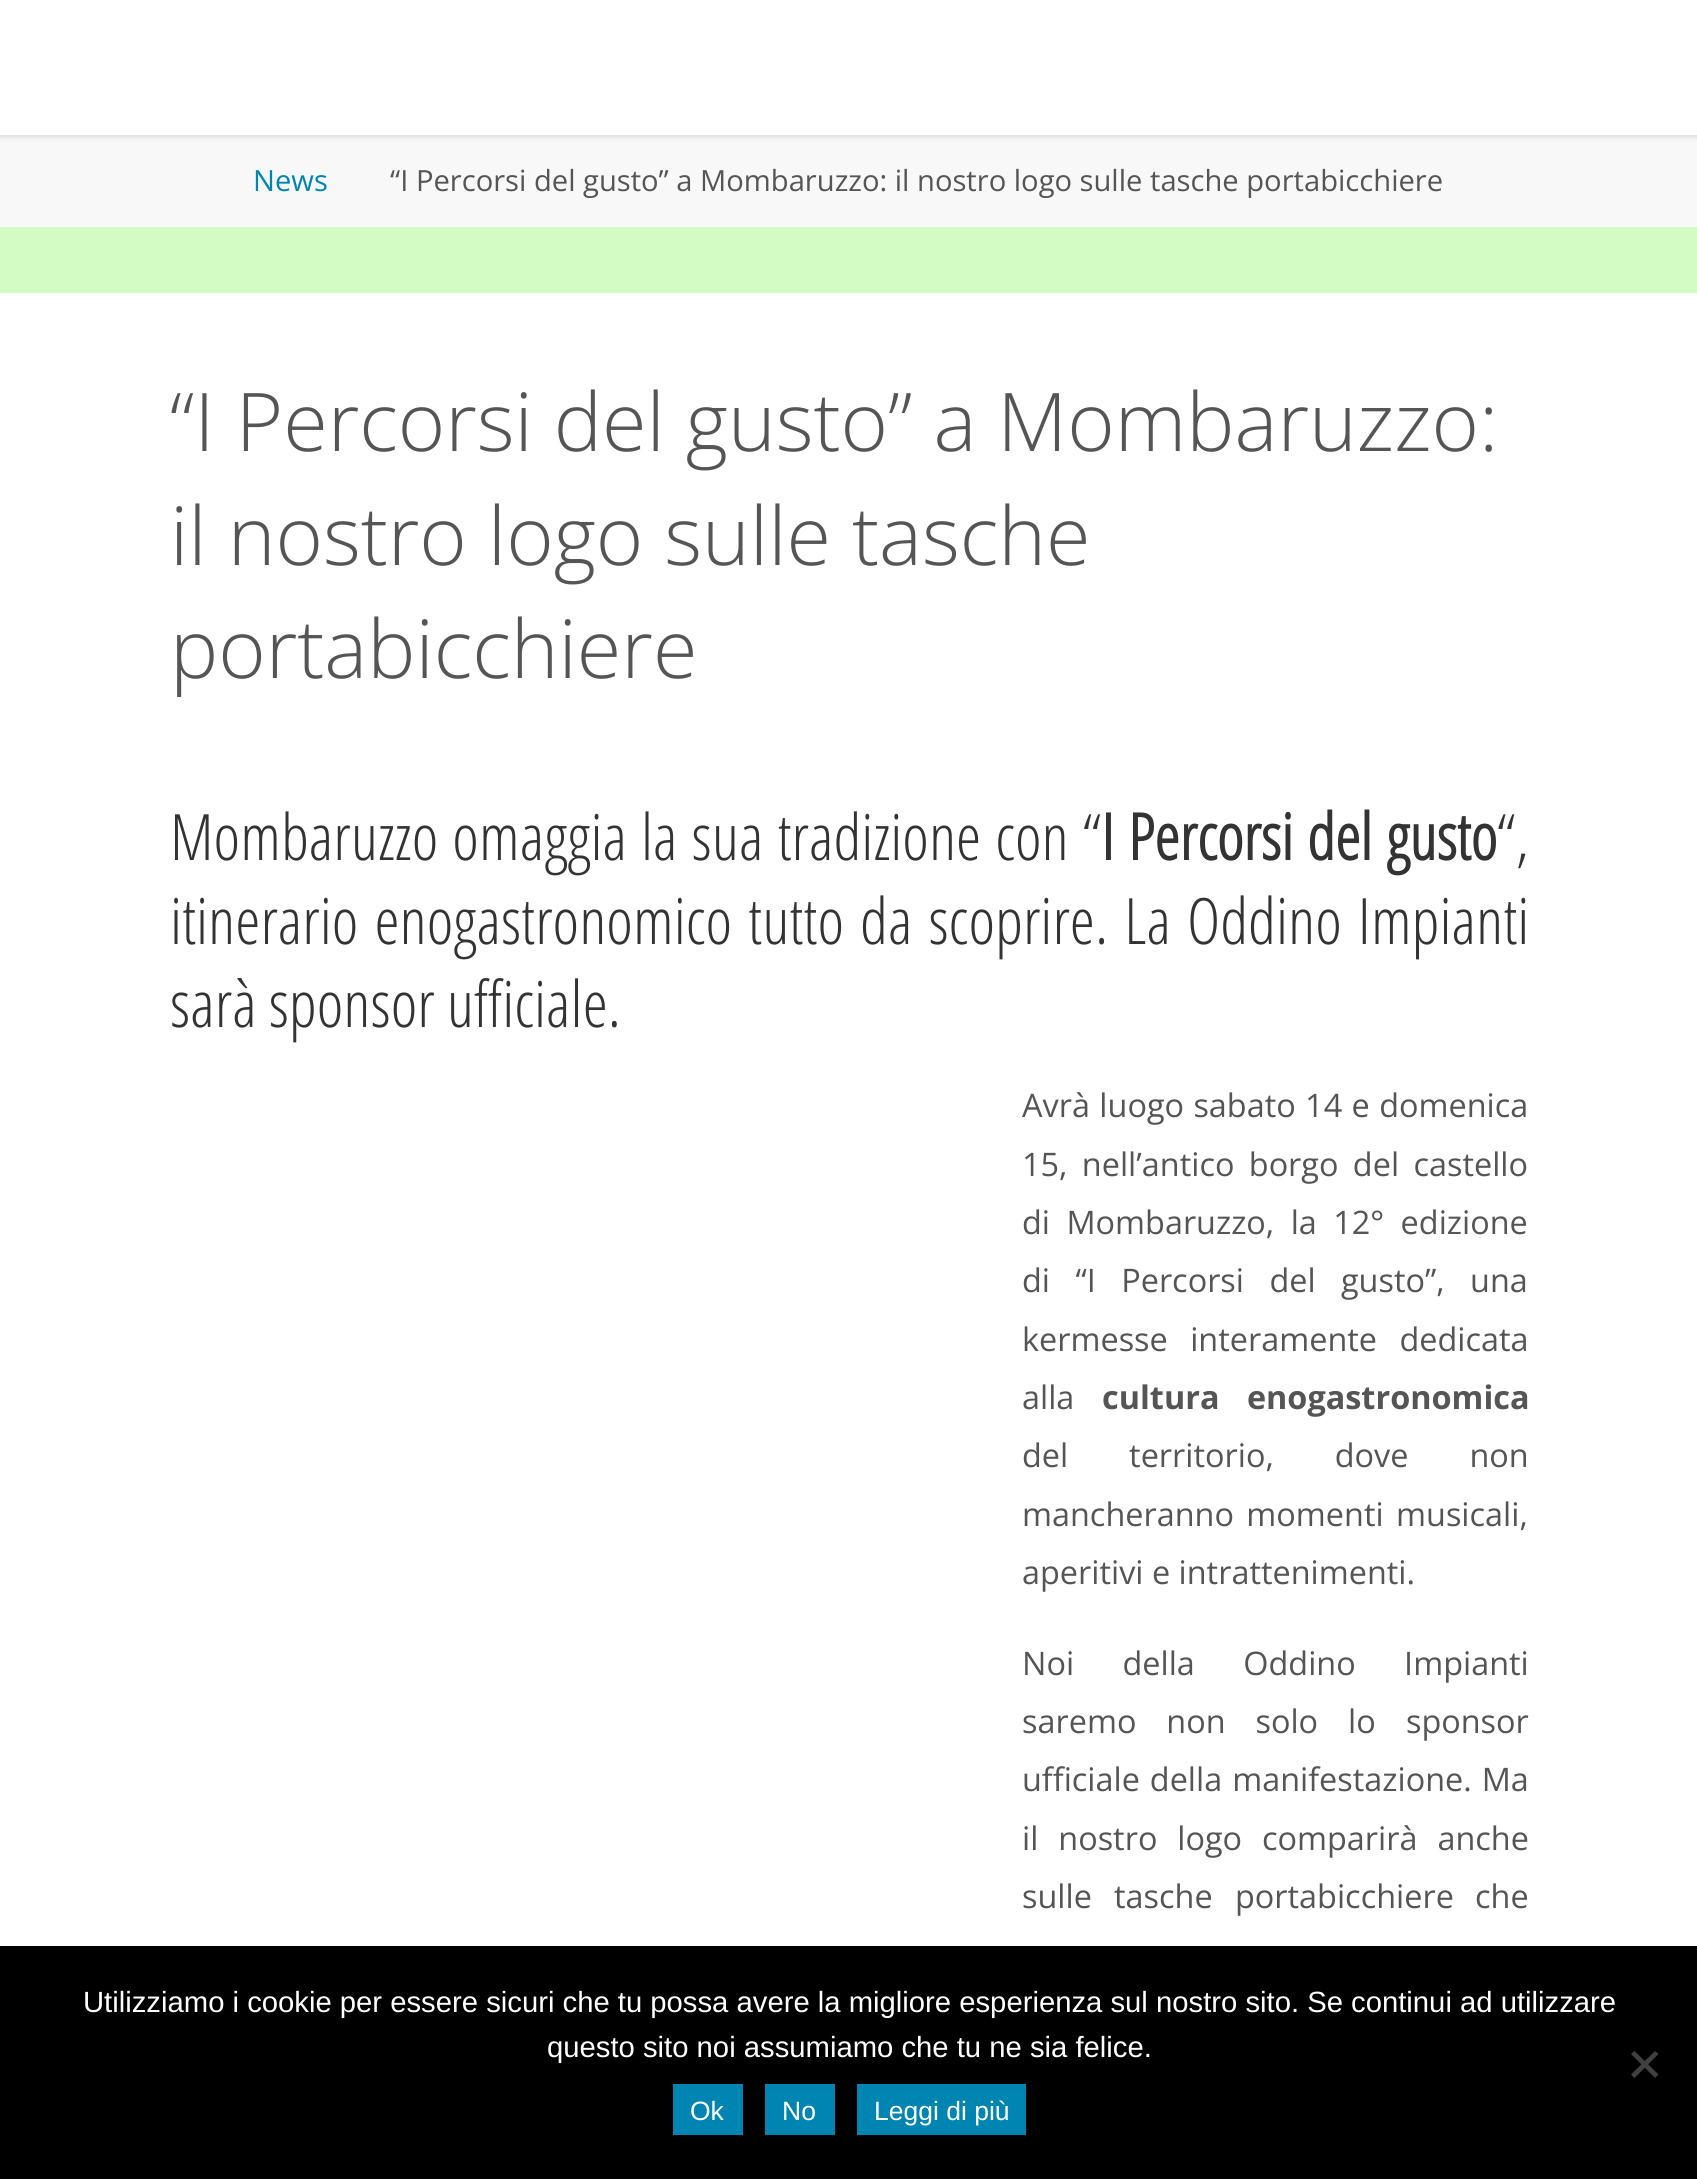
#include <cairo.h>
#include <math.h>
#include <stddef.h>


static void rgb(cairo_t *cr, int r, int g, int b)
{
	cairo_set_source_rgb(cr, r / 255.0, g / 255.0, b / 255.0);
}

static void face(cairo_t *cr, const char *family, double size, int italic, int bold)
{
	cairo_select_font_face(cr, family, italic ? CAIRO_FONT_SLANT_ITALIC : CAIRO_FONT_SLANT_NORMAL,
		bold ? CAIRO_FONT_WEIGHT_BOLD : CAIRO_FONT_WEIGHT_NORMAL);
	cairo_set_font_size(cr, size);
}

static void label(cairo_t *cr, double x, double y, const char *s)
{
	cairo_move_to(cr, x, y);
	cairo_show_text(cr, s);
}

static void tracked(cairo_t *cr, double x, double y, const char *s, double letter, double word)
{
	cairo_move_to(cr, x, y);
	while (*s) {
		char ch[5] = {0};
		int n = 0;
		do ch[n++] = *s++; while ((*s & 0xC0) == 0x80);
		cairo_show_text(cr, ch);
		cairo_rel_move_to(cr, letter + word * (*ch == ' '), 0);
	}
}

static void rect(cairo_t *cr, double x, double y, double w, double h)
{
	cairo_rectangle(cr, x, y, w, h);
	cairo_fill(cr);
}

static void rrect(cairo_t *cr, double x, double y, double w, double h, double r)
{
	cairo_new_sub_path(cr);
	cairo_arc(cr, x + w - r, y + h - r, r, 0, M_PI / 2);
	cairo_arc(cr, x + r, y + h - r, r, M_PI / 2, M_PI);
	cairo_arc(cr, x + r, y + r, r, M_PI, 1.5 * M_PI);
	cairo_arc(cr, x + w - r, y + r, r, 1.5 * M_PI, 2 * M_PI);
	cairo_close_path(cr);
}

static void soft_shadow(cairo_t *cr, double x, double y, double w, double h, double r, double blur, double alpha)
{
	cairo_push_group_with_content(cr, CAIRO_CONTENT_ALPHA);
	cairo_set_operator(cr, CAIRO_OPERATOR_SOURCE);
	for (int i = 15; i >= -15 && fmin(w, h) + blur * i / 3 > 0; i -= 2) {
		double e = blur * i / 6;
		cairo_set_source_rgba(cr, 0, 0, 0, alpha * erfc((i - 1) / 8.5) / 2);
		rrect(cr, x - e, y - e, w + 2 * e, h + 2 * e, fmax(0, fmin(r + e + blur * .6, fmin(w, h) / 2 + e)));
		cairo_fill(cr);
	}
	cairo_pattern_t *soft = cairo_pop_group(cr);
	cairo_mask(cr, soft);
	cairo_pattern_destroy(soft);
}

static void draw(cairo_t *cr) {
	rgb(cr, 211, 252, 196);
	cairo_paint(cr);
	rgb(cr, 248, 248, 248);
	rect(cr, 0, 135, 1697, 92);
	rgb(cr, 0, 0, 0);
	soft_shadow(cr, 0, 0, 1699, 135, 0, 3.5, 0.2);
	rgb(cr, 255, 255, 255);
	rect(cr, 0, 0, 1697, 135);
	face(cr, "Open Sans", 29.15, 0, 0);
	rgb(cr, 0, 133, 178);
	label(cr, 253, 191, "News");
	rgb(cr, 85, 85, 85);
	label(cr, 390, 191, "“I Percorsi del gusto” a Mombaruzzo: il nostro logo sulle tasche portabicchiere");
	rgb(cr, 255, 255, 255);
	rect(cr, 0, 293, 1697, 1653);
	face(cr, "Open Sans Light", 81, 0, 0);
	rgb(cr, 85, 85, 85);
	label(cr, 170, 451, "“I Percorsi del gusto” a Mombaruzzo:");
	label(cr, 170, 565, "il nostro logo sulle tasche");
	label(cr, 170, 678, "portabicchiere");
	face(cr, "Open Sans Condensed Light", 64, 0, 0);
	rgb(cr, 51, 51, 51);
	tracked(cr, 170, 860, "Mombaruzzo omaggia la sua tradizione con “", 0, 2);
	face(cr, "Open Sans Condensed", 64, 0, 1);
	tracked(cr, 1101, 860, "I Percorsi del gusto", 0, 2);
	face(cr, "Open Sans Condensed Light", 64, 0, 0);
	label(cr, 1497, 860, "“,");
	tracked(cr, 170, 944, "itinerario enogastronomico tutto da scoprire. La Oddino Impianti", 0, 4);
	label(cr, 170, 1027, "sarà sponsor ufficiale.");
	face(cr, "Open Sans", 32.4, 0, 0);
	rgb(cr, 85, 85, 85);
	tracked(cr, 1022, 1117, "Avrà luogo sabato 14 e domenica", 0, 1);
	tracked(cr, 1022, 1176, "15, nell’antico borgo del castello", 0, 6);
	tracked(cr, 1022, 1234, "di Mombaruzzo, la 12° edizione", 0, 8);
	tracked(cr, 1022, 1292, "di “I Percorsi del gusto”, una", 0, 17);
	tracked(cr, 1022, 1351, "kermesse interamente dedicata", 0, 14);
	label(cr, 1022, 1409, "alla");
	face(cr, "Open Sans", 32.4, 0, 1);
	tracked(cr, 1102, 1409, "cultura enogastronomica", 0, 19);
	face(cr, "Open Sans", 32.4, 0, 0);
	tracked(cr, 1022, 1467, "del territorio, dove non", 0, 52.5);
	tracked(cr, 1022, 1526, "mancheranno momenti musicali,", 0, 4);
	label(cr, 1022, 1584, "aperitivi e intrattenimenti.");
	tracked(cr, 1022, 1675, "Noi della Oddino Impianti", 0, 40);
	tracked(cr, 1022, 1733, "saremo non solo lo", 0, 21.5);
	label(cr, 1406, 1733, "sponsor");
	tracked(cr, 1022, 1791, "ufficiale della manifestazione. Ma", 0, 1.5);
	tracked(cr, 1022, 1850, "il nostro logo comparirà anche", 0, 11.5);
	label(cr, 1022, 1908, "sulle");
	tracked(cr, 1114, 1908, "tasche portabicchiere", 0, 14);
	label(cr, 1475, 1908, "che");
	rgb(cr, 0, 0, 0);
	rect(cr, 0, 1946, 1697, 233);
	face(cr, "Liberation Sans", 29.25, 0, 0);
	rgb(cr, 255, 255, 255);
	label(cr, 83, 2012, "Utilizziamo i cookie per essere sicuri che tu possa avere la migliore esperienza sul nostro sito. Se continui ad utilizzare");
	label(cr, 547, 2057, "questo sito noi assumiamo che tu ne sia felice.");
	rgb(cr, 64, 64, 64);
	cairo_new_path(cr);
	cairo_move_to(cr, 1655, 2051);
	cairo_line_to(cr, 1658.5, 2054);
	cairo_line_to(cr, 1634.5, 2078);
	cairo_line_to(cr, 1631, 2074.5);
	cairo_close_path(cr);
	cairo_fill(cr);
	cairo_new_path(cr);
	cairo_move_to(cr, 1631, 2054);
	cairo_line_to(cr, 1634.5, 2051);
	cairo_line_to(cr, 1658.5, 2074.5);
	cairo_line_to(cr, 1655, 2078);
	cairo_close_path(cr);
	cairo_fill(cr);
	rgb(cr, 0, 133, 178);
	rect(cr, 673, 2084, 70, 51);
	face(cr, "Liberation Sans", 26.5, 0, 0);
	rgb(cr, 255, 255, 255);
	label(cr, 690, 2120, "Ok");
	rgb(cr, 0, 133, 178);
	rect(cr, 765, 2084, 70, 51);
	rgb(cr, 255, 255, 255);
	label(cr, 782, 2120, "No");
	rgb(cr, 0, 133, 178);
	rect(cr, 857, 2084, 169, 51);
	rgb(cr, 255, 255, 255);
	label(cr, 874, 2120, "Leggi di più");
}

int main(void) {
	cairo_surface_t *surface = cairo_image_surface_create(CAIRO_FORMAT_RGB24, 1697, 2179);
	cairo_t *cr = cairo_create(surface);
	cairo_font_options_t *options = cairo_font_options_create();
	cairo_font_options_set_hint_metrics(options, CAIRO_HINT_METRICS_OFF);
	cairo_font_options_set_hint_style(options, CAIRO_HINT_STYLE_NONE);
	cairo_set_font_options(cr, options);
	cairo_set_miter_limit(cr, 4);
	draw(cr);
	cairo_surface_write_to_png(surface, "render.png");
	cairo_font_options_destroy(options);
	cairo_destroy(cr);
	cairo_surface_destroy(surface);
	return 0;
}
